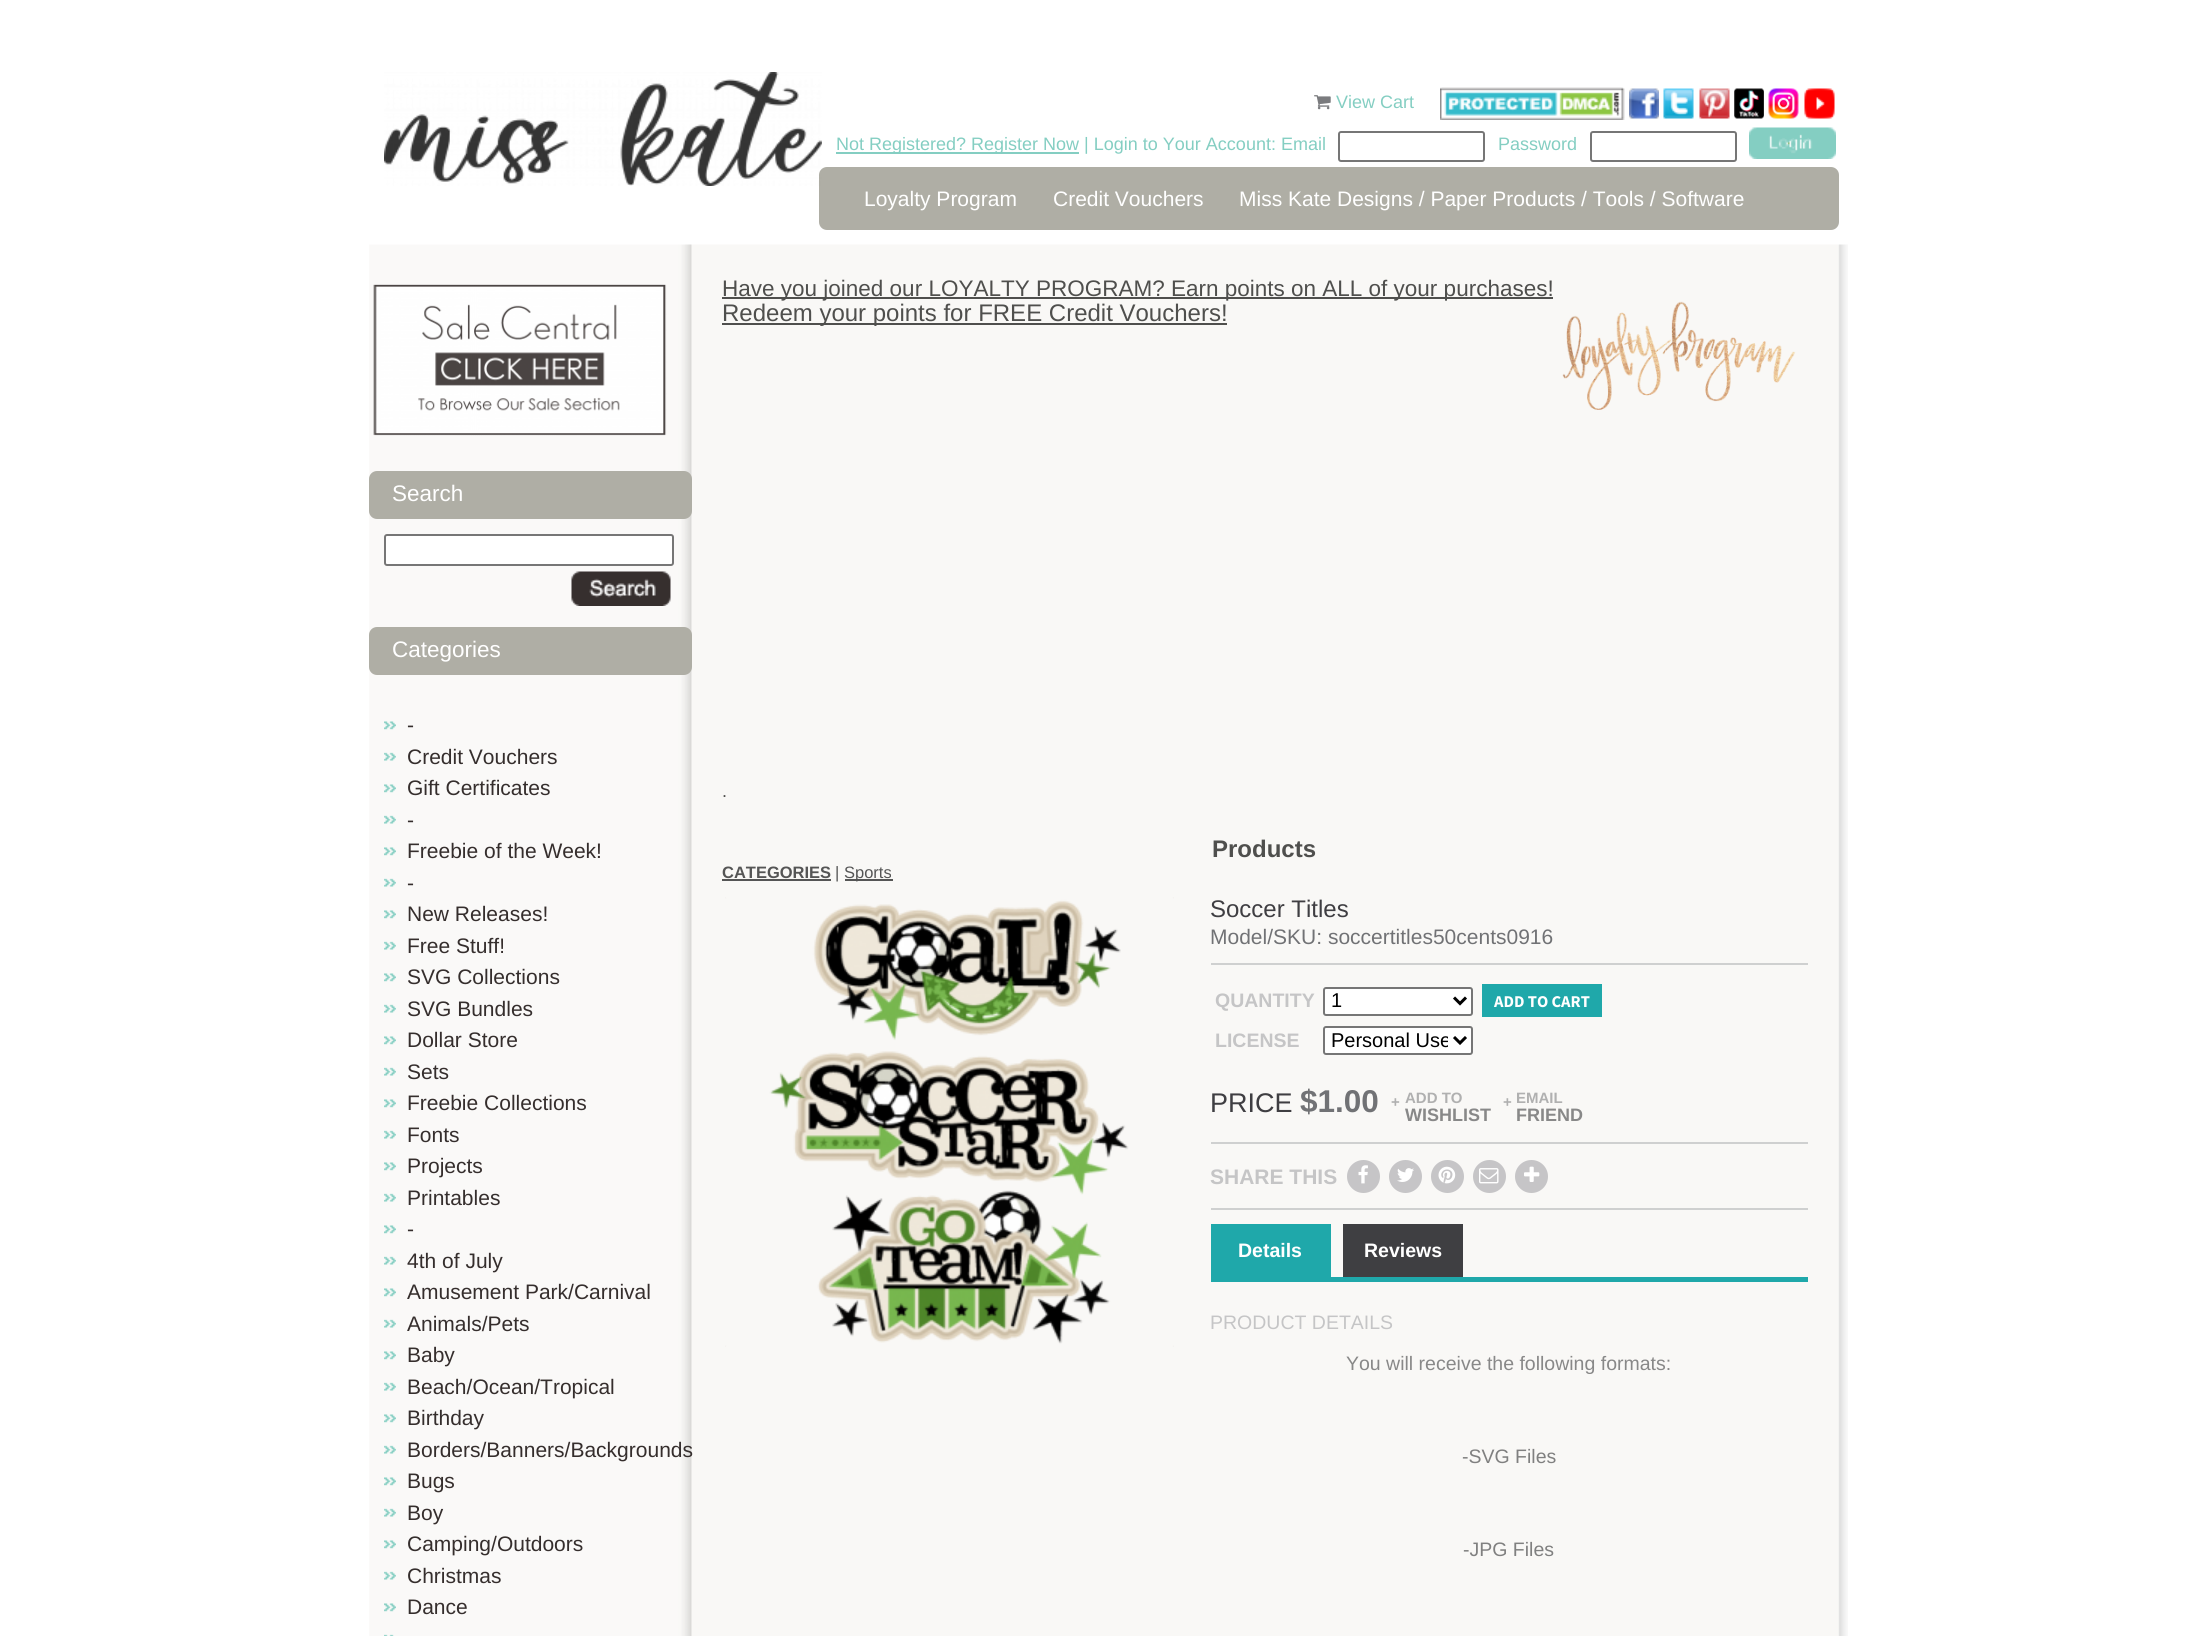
#include <cairo.h>
#include <math.h>
#include <stddef.h>


static void rgb(cairo_t *cr, int r, int g, int b)
{
	cairo_set_source_rgb(cr, r / 255.0, g / 255.0, b / 255.0);
}

static void face(cairo_t *cr, const char *family, double size, int italic, int bold)
{
	cairo_select_font_face(cr, family, italic ? CAIRO_FONT_SLANT_ITALIC : CAIRO_FONT_SLANT_NORMAL,
		bold ? CAIRO_FONT_WEIGHT_BOLD : CAIRO_FONT_WEIGHT_NORMAL);
	cairo_set_font_size(cr, size);
}

static void label(cairo_t *cr, double x, double y, const char *s)
{
	cairo_move_to(cr, x, y);
	cairo_show_text(cr, s);
}

static void rect(cairo_t *cr, double x, double y, double w, double h)
{
	cairo_rectangle(cr, x, y, w, h);
	cairo_fill(cr);
}

static void rrect(cairo_t *cr, double x, double y, double w, double h, double r)
{
	cairo_new_sub_path(cr);
	cairo_arc(cr, x + w - r, y + h - r, r, 0, M_PI / 2);
	cairo_arc(cr, x + r, y + h - r, r, M_PI / 2, M_PI);
	cairo_arc(cr, x + r, y + r, r, M_PI, 1.5 * M_PI);
	cairo_arc(cr, x + w - r, y + r, r, 1.5 * M_PI, 2 * M_PI);
	cairo_close_path(cr);
}

static void image(cairo_t *cr, const char *path, double x, double y, double w, double h)
{
	cairo_surface_t *image = cairo_image_surface_create_from_png(path);
	cairo_save(cr);
	cairo_set_source_surface(cr, image, x, y);
	cairo_rectangle(cr, x, y, w, h);
	cairo_fill(cr);
	cairo_restore(cr);
	cairo_surface_destroy(image);
}

static void draw(cairo_t *cr) {
	rgb(cr, 255, 255, 255);
	cairo_paint(cr);
	rgb(cr, 175, 174, 165);
	rrect(cr, 819, 167, 1020, 63, 8);
	cairo_fill(cr);
	image(cr, "image0.png", 384, 72, 438, 114);
	image(cr, "image1.png", 1314, 95, 17, 15);
	face(cr, "Liberation Sans", 18, 0, 0);
	rgb(cr, 132, 206, 194);
	label(cr, 1336, 108, "View Cart");
	image(cr, "image2.png", 1440, 87, 185, 33);
	image(cr, "image3.png", 1629, 88, 30, 31);
	image(cr, "image4.png", 1663, 88, 31, 31);
	image(cr, "image5.png", 1699, 88, 31, 31);
	image(cr, "image6.png", 1734, 88, 30, 31);
	image(cr, "image7.png", 1768, 88, 31, 31);
	image(cr, "image8.png", 1804, 88, 31, 31);
	rect(cr, 836, 152, 243, 2);
	label(cr, 836, 150, "Not Registered? Register Now | Login to Your Account: Email");
	rrect(cr, 1339, 132, 145, 29, 2);
	rgb(cr, 118, 118, 118);
	cairo_stroke(cr);
	rgb(cr, 132, 206, 194);
	label(cr, 1498, 150, "Password");
	rrect(cr, 1591, 132, 145, 29, 2);
	rgb(cr, 118, 118, 118);
	cairo_stroke(cr);
	image(cr, "image9.png", 1749, 127, 87, 32);
	face(cr, "Liberation Sans", 21, 0, 0);
	rgb(cr, 255, 255, 255);
	label(cr, 864, 206, "Loyalty Program");
	label(cr, 1053, 206, "Credit Vouchers");
	label(cr, 1239, 206, "Miss Kate Designs / Paper Products / Tools / Software");
	image(cr, "image10.png", 369, 244, 1479, 1392);
	image(cr, "image11.png", 373, 284, 294, 152);
	rgb(cr, 175, 174, 165);
	rrect(cr, 369, 471, 323, 48, 8);
	cairo_fill(cr);
	face(cr, "Liberation Sans", 22.5, 0, 0);
	rgb(cr, 255, 255, 255);
	label(cr, 392, 501, "Search");
	rrect(cr, 385, 535, 288, 30, 2);
	cairo_fill_preserve(cr);
	rgb(cr, 118, 118, 118);
	cairo_stroke(cr);
	image(cr, "image12.png", 571, 571, 100, 35);
	rgb(cr, 175, 174, 165);
	rrect(cr, 369, 627, 323, 48, 8);
	cairo_fill(cr);
	rgb(cr, 255, 255, 255);
	label(cr, 392, 657, "Categories");
	image(cr, "image13.png", 384, 721, 12, 9);
	face(cr, "Liberation Sans", 21, 0, 0);
	rgb(cr, 53, 46, 45);
	label(cr, 407, 732, "-");
	image(cr, "image14.png", 384, 752, 12, 9);
	label(cr, 407, 764, "Credit Vouchers");
	image(cr, "image13.png", 384, 784, 12, 9);
	label(cr, 407, 795, "Gift Certificates");
	image(cr, "image14.png", 384, 815, 12, 9);
	label(cr, 407, 827, "-");
	image(cr, "image13.png", 384, 847, 12, 9);
	label(cr, 407, 858, "Freebie of the Week!");
	image(cr, "image14.png", 384, 878, 12, 9);
	label(cr, 407, 890, "-");
	image(cr, "image13.png", 384, 910, 12, 9);
	label(cr, 407, 921, "New Releases!");
	image(cr, "image14.png", 384, 941, 12, 9);
	label(cr, 407, 953, "Free Stuff!");
	image(cr, "image13.png", 384, 973, 12, 9);
	label(cr, 407, 984, "SVG Collections");
	image(cr, "image14.png", 384, 1004, 12, 9);
	label(cr, 407, 1016, "SVG Bundles");
	image(cr, "image13.png", 384, 1036, 12, 9);
	label(cr, 407, 1047, "Dollar Store");
	image(cr, "image14.png", 384, 1067, 12, 9);
	label(cr, 407, 1079, "Sets");
	image(cr, "image13.png", 384, 1099, 12, 9);
	label(cr, 407, 1110, "Freebie Collections");
	image(cr, "image14.png", 384, 1130, 12, 9);
	label(cr, 407, 1142, "Fonts");
	image(cr, "image13.png", 384, 1162, 12, 9);
	label(cr, 407, 1173, "Projects");
	image(cr, "image14.png", 384, 1193, 12, 9);
	label(cr, 407, 1205, "Printables");
	image(cr, "image13.png", 384, 1225, 12, 9);
	label(cr, 407, 1236, "-");
	image(cr, "image14.png", 384, 1256, 12, 9);
	label(cr, 407, 1268, "4th of July");
	image(cr, "image13.png", 384, 1288, 12, 9);
	label(cr, 407, 1299, "Amusement Park/Carnival");
	image(cr, "image14.png", 384, 1319, 12, 9);
	label(cr, 407, 1331, "Animals/Pets");
	image(cr, "image13.png", 384, 1351, 12, 9);
	label(cr, 407, 1362, "Baby");
	image(cr, "image14.png", 384, 1382, 12, 9);
	label(cr, 407, 1394, "Beach/Ocean/Tropical");
	image(cr, "image13.png", 384, 1414, 12, 9);
	label(cr, 407, 1425, "Birthday");
	image(cr, "image14.png", 384, 1445, 12, 9);
	label(cr, 407, 1457, "Borders/Banners/Backgrounds");
	image(cr, "image13.png", 384, 1477, 12, 9);
	label(cr, 407, 1488, "Bugs");
	image(cr, "image14.png", 384, 1508, 12, 9);
	label(cr, 407, 1520, "Boy");
	image(cr, "image13.png", 384, 1540, 12, 9);
	label(cr, 407, 1551, "Camping/Outdoors");
	image(cr, "image14.png", 384, 1571, 12, 9);
	label(cr, 407, 1583, "Christmas");
	image(cr, "image13.png", 384, 1603, 12, 9);
	label(cr, 407, 1614, "Dance");
	image(cr, "image15.png", 384, 1634, 10, 2);
	rgb(cr, 79, 79, 77);
	rect(cr, 722, 297, 831, 2);
	face(cr, "Liberation Sans", 22.5, 0, 0);
	label(cr, 722, 296, "Have you joined our LOYALTY PROGRAM? Earn points on ALL of your purchases!");
	image(cr, "image16.png", 1562, 301, 234, 109);
	rect(cr, 722, 323, 505, 2);
	face(cr, "Liberation Sans", 24, 0, 0);
	label(cr, 722, 321, "Redeem your points for FREE Credit Vouchers!");
	face(cr, "Liberation Sans", 18, 0, 0);
	label(cr, 722, 797, ".");
	face(cr, "Liberation Sans", 24, 0, 1);
	label(cr, 1212, 857, "Products");
	face(cr, "Liberation Sans", 16.5, 0, 1);
	rgb(cr, 85, 85, 85);
	label(cr, 722, 878, "CATEGORIES");
	rect(cr, 722, 879, 109, 2);
	face(cr, "Liberation Sans", 16.5, 0, 0);
	label(cr, 835, 878, "|");
	rect(cr, 845, 879, 48, 2);
	label(cr, 844, 878, "Sports");
	image(cr, "image17.png", 725, 897, 449, 450);
	face(cr, "Liberation Sans", 24, 0, 0);
	rgb(cr, 63, 62, 66);
	label(cr, 1210, 917, "Soccer Titles");
	face(cr, "Liberation Sans", 21, 0, 0);
	rgb(cr, 113, 114, 117);
	label(cr, 1210, 944, "Model/SKU: soccertitles50cents0916");
	rgb(cr, 207, 208, 208);
	rect(cr, 1211, 963, 597, 2);
	face(cr, "Liberation Sans", 19.5, 0, 1);
	rgb(cr, 197, 197, 198);
	label(cr, 1215, 1007, "QUANTITY");
	rgb(cr, 255, 255, 255);
	rrect(cr, 1324, 988, 148, 27, 2);
	cairo_fill_preserve(cr);
	rgb(cr, 118, 118, 118);
	cairo_stroke(cr);
	cairo_new_path(cr);
	cairo_move_to(cr, 1454, 997.5);
	cairo_line_to(cr, 1460, 1003.5);
	cairo_line_to(cr, 1466, 997.5);
	rgb(cr, 0, 0, 0);
	cairo_set_line_width(cr, 3);
	cairo_stroke(cr);
	face(cr, "Liberation Sans", 20, 0, 0);
	label(cr, 1331, 1007, "1");
	rgb(cr, 31, 168, 170);
	rect(cr, 1482, 984, 120, 33);
	face(cr, "Source Sans Pro", 16.5, 0, 1);
	rgb(cr, 255, 255, 255);
	label(cr, 1494, 1007, "ADD TO CART");
	face(cr, "Liberation Sans", 19.5, 0, 1);
	rgb(cr, 197, 197, 198);
	label(cr, 1215, 1047, "LICENSE");
	rgb(cr, 255, 255, 255);
	rrect(cr, 1324, 1027, 148, 27, 2);
	cairo_fill_preserve(cr);
	rgb(cr, 118, 118, 118);
	cairo_set_line_width(cr, 2);
	cairo_stroke(cr);
	cairo_new_path(cr);
	cairo_move_to(cr, 1454, 1037);
	cairo_line_to(cr, 1460, 1043);
	cairo_line_to(cr, 1466, 1037);
	rgb(cr, 0, 0, 0);
	cairo_set_line_width(cr, 3);
	cairo_stroke(cr);
	cairo_save(cr);
	cairo_rectangle(cr, 1331, 1028, 117, 25);
	cairo_clip(cr);
	face(cr, "Liberation Sans", 20, 0, 0);
	label(cr, 1331, 1047, "Personal Use");
	cairo_restore(cr);
	face(cr, "Liberation Sans", 27, 0, 0);
	rgb(cr, 63, 62, 66);
	label(cr, 1210, 1112, "PRICE");
	face(cr, "Liberation Sans", 31.5, 0, 1);
	rgb(cr, 113, 114, 117);
	label(cr, 1300, 1112, "$1.00");
	face(cr, "Liberation Sans", 15, 0, 1);
	rgb(cr, 176, 176, 176);
	label(cr, 1391, 1107, "+");
	label(cr, 1405, 1103, "ADD TO");
	face(cr, "Liberation Sans", 18, 0, 1);
	rgb(cr, 136, 136, 136);
	label(cr, 1405, 1121, "WISHLIST");
	face(cr, "Liberation Sans", 15, 0, 1);
	rgb(cr, 176, 176, 176);
	label(cr, 1503, 1107, "+");
	label(cr, 1516, 1103, "EMAIL");
	face(cr, "Liberation Sans", 18, 0, 1);
	rgb(cr, 136, 136, 136);
	label(cr, 1516, 1121, "FRIEND");
	rgb(cr, 207, 208, 208);
	rect(cr, 1211, 1142, 597, 2);
	rect(cr, 1211, 1208, 597, 2);
	face(cr, "Liberation Sans", 21, 0, 1);
	rgb(cr, 197, 197, 198);
	label(cr, 1210, 1184, "SHARE THIS");
	rgb(cr, 198, 197, 199);
	cairo_new_path(cr);
	cairo_arc(cr, 1363.5, 1176.5, 16.5, 0, 2 * M_PI);
	cairo_fill(cr);
	image(cr, "image18.png", 1358, 1165, 10, 19);
	cairo_arc(cr, 1405.5, 1176.5, 16.5, 0, 2 * M_PI);
	cairo_fill(cr);
	image(cr, "image19.png", 1397, 1168, 17, 14);
	cairo_arc(cr, 1447.5, 1176.5, 16.5, 0, 2 * M_PI);
	cairo_fill(cr);
	image(cr, "image20.png", 1438, 1166, 18, 18);
	cairo_arc(cr, 1489.5, 1176.5, 16.5, 0, 2 * M_PI);
	cairo_fill(cr);
	image(cr, "image21.png", 1479, 1168, 20, 16);
	cairo_arc(cr, 1531.5, 1176.5, 16.5, 0, 2 * M_PI);
	cairo_fill(cr);
	image(cr, "image22.png", 1524, 1166, 16, 16);
	rgb(cr, 31, 168, 170);
	rect(cr, 1211, 1224, 120, 53);
	face(cr, "Liberation Sans", 19.5, 0, 1);
	rgb(cr, 255, 255, 255);
	label(cr, 1238, 1257, "Details");
	rgb(cr, 63, 63, 66);
	rect(cr, 1343, 1224, 120, 53);
	rgb(cr, 255, 255, 255);
	label(cr, 1364, 1257, "Reviews");
	rgb(cr, 31, 168, 170);
	rect(cr, 1211, 1277, 597, 5);
	face(cr, "Liberation Sans", 19.5, 0, 0);
	rgb(cr, 197, 197, 198);
	label(cr, 1210, 1329, "PRODUCT DETAILS");
	rgb(cr, 136, 136, 136);
	label(cr, 1346, 1370, "You will receive the following formats:");
	rgb(cr, 128, 128, 128);
	label(cr, 1462, 1463, "-SVG Files");
	label(cr, 1463, 1556, "-JPG Files");
}

int main(void) {
	cairo_surface_t *surface = cairo_image_surface_create(CAIRO_FORMAT_RGB24, 2208, 1636);
	cairo_t *cr = cairo_create(surface);
	cairo_font_options_t *options = cairo_font_options_create();
	cairo_font_options_set_hint_metrics(options, CAIRO_HINT_METRICS_OFF);
	cairo_font_options_set_hint_style(options, CAIRO_HINT_STYLE_NONE);
	cairo_set_font_options(cr, options);
	cairo_set_miter_limit(cr, 4);
	draw(cr);
	cairo_surface_write_to_png(surface, "render.png");
	cairo_font_options_destroy(options);
	cairo_destroy(cr);
	cairo_surface_destroy(surface);
	return 0;
}
